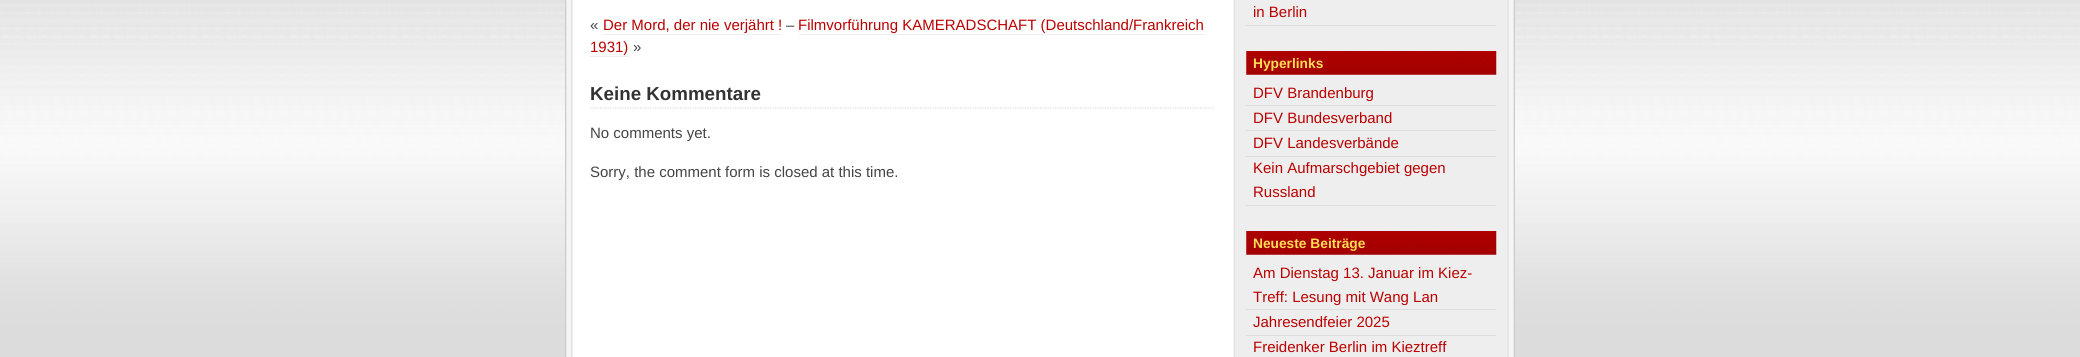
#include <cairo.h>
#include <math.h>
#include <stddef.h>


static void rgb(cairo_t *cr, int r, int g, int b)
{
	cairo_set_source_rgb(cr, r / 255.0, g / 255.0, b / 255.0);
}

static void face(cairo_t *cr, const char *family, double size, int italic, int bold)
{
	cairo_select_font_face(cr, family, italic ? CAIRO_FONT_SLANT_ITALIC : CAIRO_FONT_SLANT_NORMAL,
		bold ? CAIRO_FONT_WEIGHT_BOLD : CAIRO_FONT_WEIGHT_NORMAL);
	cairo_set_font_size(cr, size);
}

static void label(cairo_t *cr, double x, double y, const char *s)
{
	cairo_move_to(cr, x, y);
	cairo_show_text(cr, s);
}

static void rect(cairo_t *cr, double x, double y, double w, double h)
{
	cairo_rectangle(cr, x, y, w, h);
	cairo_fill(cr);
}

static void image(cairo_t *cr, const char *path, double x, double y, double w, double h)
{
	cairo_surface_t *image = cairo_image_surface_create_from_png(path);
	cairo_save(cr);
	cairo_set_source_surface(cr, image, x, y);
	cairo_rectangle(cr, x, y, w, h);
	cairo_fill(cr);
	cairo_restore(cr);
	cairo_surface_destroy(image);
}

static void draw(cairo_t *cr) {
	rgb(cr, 255, 255, 255);
	cairo_paint(cr);
	image(cr, "image0.png", 0, 0, 2080, 357);
	image(cr, "image1.png", 565, 0, 950, 357);
	face(cr, "Liberation Sans", 15, 0, 0);
	rgb(cr, 68, 68, 68);
	label(cr, 590, 30, "«");
	rgb(cr, 187, 0, 0);
	label(cr, 603, 30, "Der Mord, der nie verjährt !");
	rgb(cr, 238, 238, 238);
	rect(cr, 603, 34, 178, 1);
	rgb(cr, 68, 68, 68);
	label(cr, 786, 30, "–");
	rgb(cr, 187, 0, 0);
	label(cr, 798, 30, "Filmvorführung KAMERADSCHAFT (Deutschland/Frankreich");
	rgb(cr, 238, 238, 238);
	rect(cr, 799, 34, 406, 1);
	rgb(cr, 187, 0, 0);
	label(cr, 590, 52, "1931)");
	rgb(cr, 238, 238, 238);
	rect(cr, 590, 56, 39, 1);
	rgb(cr, 68, 68, 68);
	label(cr, 633, 52, "»");
	cairo_new_path(cr);
	cairo_move_to(cr, 590, 108);
	cairo_line_to(cr, 1215, 108);
	rgb(cr, 221, 221, 221);
	cairo_set_line_width(cr, 1.2);
	cairo_set_dash(cr, (double[]){1.25, 1.25}, 2, 0);
	cairo_stroke(cr);
	face(cr, "Liberation Sans", 18.75, 0, 1);
	rgb(cr, 51, 51, 51);
	label(cr, 590, 100, "Keine Kommentare");
	face(cr, "Liberation Sans", 15, 0, 0);
	rgb(cr, 68, 68, 68);
	label(cr, 590, 138, "No comments yet.");
	label(cr, 590, 177, "Sorry, the comment form is closed at this time.");
	rgb(cr, 221, 221, 221);
	rect(cr, 1246, 25, 250, 1);
	rgb(cr, 187, 0, 0);
	label(cr, 1253, 17, "in Berlin");
	image(cr, "image2.png", 1246, 51, 251, 24);
	face(cr, "Liberation Sans", 13.75, 0, 1);
	rgb(cr, 255, 221, 85);
	label(cr, 1253, 68, "Hyperlinks");
	rgb(cr, 221, 221, 221);
	rect(cr, 1246, 105, 250, 1);
	face(cr, "Liberation Sans", 15, 0, 0);
	rgb(cr, 187, 0, 0);
	label(cr, 1253, 98, "DFV Brandenburg");
	rgb(cr, 221, 221, 221);
	rect(cr, 1246, 130, 250, 1);
	rgb(cr, 187, 0, 0);
	label(cr, 1253, 123, "DFV Bundesverband");
	rgb(cr, 221, 221, 221);
	rect(cr, 1246, 156, 250, 1);
	rgb(cr, 187, 0, 0);
	label(cr, 1253, 148, "DFV Landesverbände");
	rgb(cr, 221, 221, 221);
	rect(cr, 1246, 205, 250, 1);
	rgb(cr, 187, 0, 0);
	label(cr, 1253, 173, "Kein Aufmarschgebiet gegen");
	label(cr, 1253, 197, "Russland");
	image(cr, "image2.png", 1246, 231, 251, 24);
	face(cr, "Liberation Sans", 13.75, 0, 1);
	rgb(cr, 255, 221, 85);
	label(cr, 1253, 248, "Neueste Beiträge");
	rgb(cr, 221, 221, 221);
	rect(cr, 1246, 309, 250, 1);
	face(cr, "Liberation Sans", 15, 0, 0);
	rgb(cr, 187, 0, 0);
	label(cr, 1253, 278, "Am Dienstag 13. Januar im Kiez-");
	label(cr, 1253, 302, "Treff: Lesung mit Wang Lan");
	rgb(cr, 221, 221, 221);
	rect(cr, 1246, 335, 250, 1);
	rgb(cr, 187, 0, 0);
	label(cr, 1253, 327, "Jahresendfeier 2025");
	label(cr, 1253, 352, "Freidenker Berlin im Kieztreff");
}

int main(void) {
	cairo_surface_t *surface = cairo_image_surface_create(CAIRO_FORMAT_RGB24, 2080, 357);
	cairo_t *cr = cairo_create(surface);
	cairo_font_options_t *options = cairo_font_options_create();
	cairo_font_options_set_hint_metrics(options, CAIRO_HINT_METRICS_OFF);
	cairo_font_options_set_hint_style(options, CAIRO_HINT_STYLE_NONE);
	cairo_set_font_options(cr, options);
	cairo_set_miter_limit(cr, 4);
	draw(cr);
	cairo_surface_write_to_png(surface, "render.png");
	cairo_font_options_destroy(options);
	cairo_destroy(cr);
	cairo_surface_destroy(surface);
	return 0;
}
